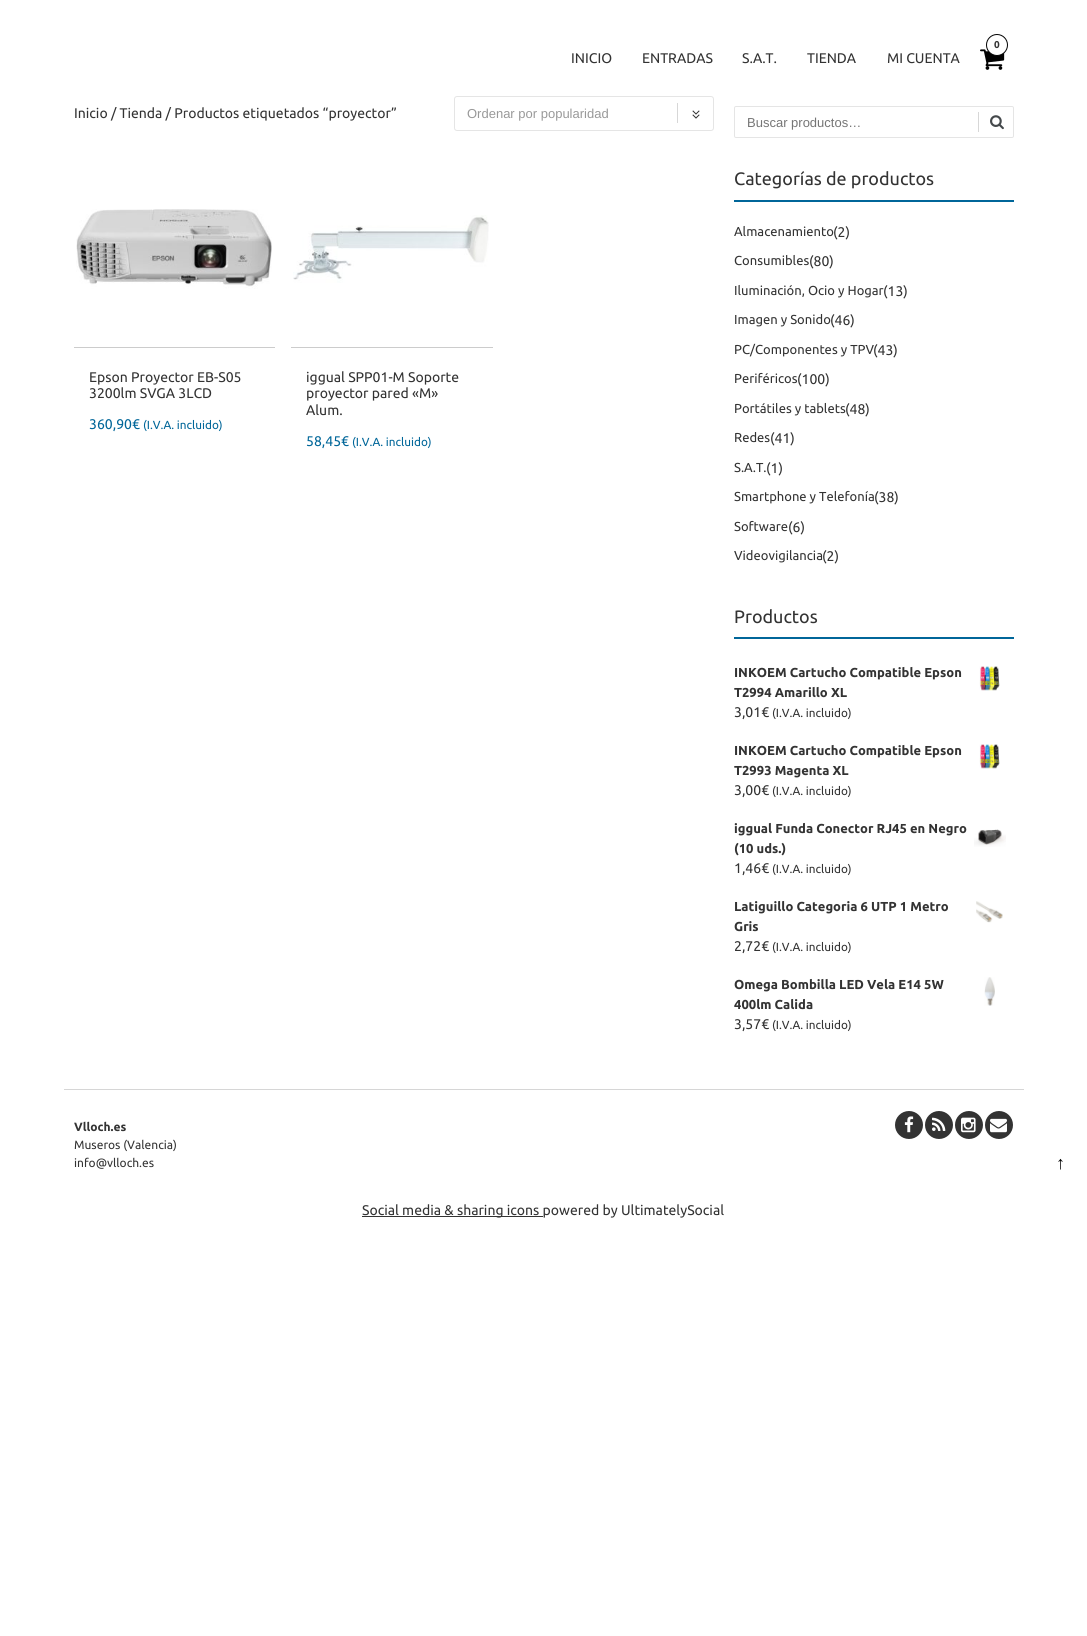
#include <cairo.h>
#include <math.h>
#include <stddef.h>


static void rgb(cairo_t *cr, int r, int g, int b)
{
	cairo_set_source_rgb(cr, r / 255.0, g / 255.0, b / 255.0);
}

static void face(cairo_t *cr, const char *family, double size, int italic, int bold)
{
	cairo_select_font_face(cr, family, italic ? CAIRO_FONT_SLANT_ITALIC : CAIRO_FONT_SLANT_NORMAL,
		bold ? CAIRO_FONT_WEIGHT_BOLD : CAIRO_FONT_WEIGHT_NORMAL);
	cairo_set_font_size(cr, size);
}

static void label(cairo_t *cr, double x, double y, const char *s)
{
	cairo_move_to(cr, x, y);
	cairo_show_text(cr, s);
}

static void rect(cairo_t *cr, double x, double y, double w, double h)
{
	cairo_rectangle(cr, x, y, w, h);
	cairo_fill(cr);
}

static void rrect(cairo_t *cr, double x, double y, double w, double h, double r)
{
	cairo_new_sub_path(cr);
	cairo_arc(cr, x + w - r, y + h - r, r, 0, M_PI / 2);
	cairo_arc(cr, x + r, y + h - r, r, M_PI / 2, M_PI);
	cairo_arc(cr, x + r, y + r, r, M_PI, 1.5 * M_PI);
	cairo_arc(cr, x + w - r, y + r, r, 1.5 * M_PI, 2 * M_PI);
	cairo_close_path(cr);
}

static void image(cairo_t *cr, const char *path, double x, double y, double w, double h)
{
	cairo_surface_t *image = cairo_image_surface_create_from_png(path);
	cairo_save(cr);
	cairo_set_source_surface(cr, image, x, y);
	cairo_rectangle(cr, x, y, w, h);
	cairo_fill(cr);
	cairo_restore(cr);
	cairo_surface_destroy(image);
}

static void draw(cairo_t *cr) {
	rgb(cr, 255, 255, 255);
	cairo_paint(cr);
	image(cr, "image0.png", 980, 49, 25, 21);
	rgb(cr, 255, 255, 255);
	cairo_arc(cr, 997, 45, 10.5, 0, 2 * M_PI);
	cairo_fill_preserve(cr);
	rgb(cr, 2, 2, 2);
	cairo_set_line_width(cr, 1);
	cairo_stroke(cr);
	face(cr, "Ubuntu", 10, 0, 1);
	rgb(cr, 51, 51, 51);
	label(cr, 994, 48, "0");
	face(cr, "Ubuntu", 14, 0, 0);
	label(cr, 571, 63, "INICIO");
	label(cr, 642, 63, "ENTRADAS");
	label(cr, 742, 63, "S.A.T.");
	label(cr, 807, 63, "TIENDA");
	label(cr, 887, 63, "MI CUENTA");
	label(cr, 74, 118, "Inicio / Tienda / Productos etiquetados “proyector”");
	image(cr, "image1.png", 677, 103, 23, 20);
	rrect(cr, 454.5, 96.5, 259, 34, 2.5);
	rgb(cr, 229, 229, 229);
	cairo_stroke(cr);
	face(cr, "Liberation Sans", 13, 0, 0);
	rgb(cr, 153, 153, 153);
	label(cr, 467, 118, "Ordenar por popularidad");
	rgb(cr, 204, 204, 204);
	rect(cr, 74, 347, 201, 1);
	image(cr, "image2.png", 76, 209, 196, 80);
	face(cr, "Ubuntu", 14, 0, 0);
	rgb(cr, 51, 51, 51);
	label(cr, 89, 382, "Epson Proyector EB-S05");
	label(cr, 89, 398, "3200lm SVGA 3LCD");
	rgb(cr, 0, 102, 153);
	label(cr, 89, 429, "360,90€");
	face(cr, "Ubuntu", 11.75, 0, 0);
	label(cr, 143, 429, "(I.V.A. incluido)");
	rgb(cr, 204, 204, 204);
	rect(cr, 291, 347, 202, 1);
	image(cr, "image3.png", 293, 215, 196, 68);
	face(cr, "Ubuntu", 14, 0, 0);
	rgb(cr, 51, 51, 51);
	label(cr, 306, 382, "iggual SPP01-M Soporte");
	label(cr, 306, 398, "proyector pared «M»");
	label(cr, 306, 415, "Alum.");
	rgb(cr, 0, 102, 153);
	label(cr, 306, 446, "58,45€");
	face(cr, "Ubuntu", 11.75, 0, 0);
	label(cr, 352, 446, "(I.V.A. incluido)");
	rrect(cr, 734.5, 106.5, 279, 31, 1.5);
	rgb(cr, 229, 229, 229);
	cairo_stroke(cr);
	face(cr, "Liberation Sans", 13, 0, 0);
	rgb(cr, 117, 117, 117);
	label(cr, 747, 127, "Buscar productos…");
	rgb(cr, 215, 215, 215);
	rect(cr, 978, 112, 1, 20);
	image(cr, "image4.png", 990, 115, 14, 15);
	rgb(cr, 0, 102, 153);
	rect(cr, 734, 200, 280, 2);
	face(cr, "Ubuntu", 18, 0, 0);
	rgb(cr, 51, 51, 51);
	label(cr, 734, 185, "Categorías de productos");
	face(cr, "Ubuntu", 13, 0, 0);
	label(cr, 734, 236, "Almacenamiento");
	face(cr, "Ubuntu", 14, 0, 0);
	label(cr, 833, 237, "(2)");
	face(cr, "Ubuntu", 13, 0, 0);
	label(cr, 734, 265, "Consumibles");
	face(cr, "Ubuntu", 14, 0, 0);
	label(cr, 809, 266, "(80)");
	face(cr, "Ubuntu", 13, 0, 0);
	label(cr, 734, 295, "Iluminación, Ocio y Hogar");
	face(cr, "Ubuntu", 14, 0, 0);
	label(cr, 883, 296, "(13)");
	face(cr, "Ubuntu", 13, 0, 0);
	label(cr, 734, 324, "Imagen y Sonido");
	face(cr, "Ubuntu", 14, 0, 0);
	label(cr, 830, 325, "(46)");
	face(cr, "Ubuntu", 13, 0, 0);
	label(cr, 734, 354, "PC/Componentes y TPV");
	face(cr, "Ubuntu", 14, 0, 0);
	label(cr, 873, 355, "(43)");
	face(cr, "Ubuntu", 13, 0, 0);
	label(cr, 734, 383, "Periféricos");
	face(cr, "Ubuntu", 14, 0, 0);
	label(cr, 797, 384, "(100)");
	face(cr, "Ubuntu", 13, 0, 0);
	label(cr, 734, 413, "Portátiles y tablets");
	face(cr, "Ubuntu", 14, 0, 0);
	label(cr, 845, 414, "(48)");
	face(cr, "Ubuntu", 13, 0, 0);
	label(cr, 734, 442, "Redes");
	face(cr, "Ubuntu", 14, 0, 0);
	label(cr, 770, 443, "(41)");
	face(cr, "Ubuntu", 13, 0, 0);
	label(cr, 734, 472, "S.A.T.");
	face(cr, "Ubuntu", 14, 0, 0);
	label(cr, 766, 473, "(1)");
	face(cr, "Ubuntu", 13, 0, 0);
	label(cr, 734, 501, "Smartphone y Telefonía");
	face(cr, "Ubuntu", 14, 0, 0);
	label(cr, 874, 502, "(38)");
	face(cr, "Ubuntu", 13, 0, 0);
	label(cr, 734, 531, "Software");
	face(cr, "Ubuntu", 14, 0, 0);
	label(cr, 788, 532, "(6)");
	face(cr, "Ubuntu", 13, 0, 0);
	label(cr, 734, 560, "Videovigilancia");
	face(cr, "Ubuntu", 14, 0, 0);
	label(cr, 822, 561, "(2)");
	rgb(cr, 0, 102, 153);
	rect(cr, 734, 637, 280, 2);
	face(cr, "Ubuntu", 18, 0, 0);
	rgb(cr, 51, 51, 51);
	label(cr, 734, 623, "Productos");
	face(cr, "Ubuntu", 13, 0, 1);
	label(cr, 734, 677, "INKOEM Cartucho Compatible Epson");
	image(cr, "image5.png", 979, 666, 21, 25);
	label(cr, 734, 697, "T2994 Amarillo XL");
	face(cr, "Ubuntu", 14, 0, 0);
	label(cr, 734, 717, "3,01€");
	face(cr, "Ubuntu", 11.75, 0, 0);
	label(cr, 772, 717, "(I.V.A. incluido)");
	face(cr, "Ubuntu", 13, 0, 1);
	label(cr, 734, 755, "INKOEM Cartucho Compatible Epson");
	image(cr, "image5.png", 979, 744, 21, 25);
	label(cr, 734, 775, "T2993 Magenta XL");
	face(cr, "Ubuntu", 14, 0, 0);
	label(cr, 734, 795, "3,00€");
	face(cr, "Ubuntu", 11.75, 0, 0);
	label(cr, 772, 795, "(I.V.A. incluido)");
	face(cr, "Ubuntu", 13, 0, 1);
	label(cr, 734, 833, "iggual Funda Conector RJ45 en Negro");
	image(cr, "image6.png", 974, 829, 32, 18);
	label(cr, 734, 853, "(10 uds.)");
	face(cr, "Ubuntu", 14, 0, 0);
	label(cr, 734, 873, "1,46€");
	face(cr, "Ubuntu", 11.75, 0, 0);
	label(cr, 772, 873, "(I.V.A. incluido)");
	face(cr, "Ubuntu", 13, 0, 1);
	label(cr, 734, 911, "Latiguillo Categoria 6 UTP 1 Metro");
	image(cr, "image7.png", 976, 901, 27, 22);
	label(cr, 734, 931, "Gris");
	face(cr, "Ubuntu", 14, 0, 0);
	label(cr, 734, 951, "2,72€");
	face(cr, "Ubuntu", 11.75, 0, 0);
	label(cr, 772, 951, "(I.V.A. incluido)");
	face(cr, "Ubuntu", 13, 0, 1);
	label(cr, 734, 989, "Omega Bombilla LED Vela E14 5W");
	image(cr, "image8.png", 984, 977, 11, 29);
	label(cr, 734, 1009, "400lm Calida");
	face(cr, "Ubuntu", 14, 0, 0);
	label(cr, 734, 1029, "3,57€");
	face(cr, "Ubuntu", 11.75, 0, 0);
	label(cr, 772, 1029, "(I.V.A. incluido)");
	rgb(cr, 214, 214, 214);
	rect(cr, 64, 1089, 960, 1);
	face(cr, "Ubuntu", 12, 0, 1);
	rgb(cr, 51, 51, 51);
	label(cr, 74, 1131, "Vlloch.es");
	face(cr, "Ubuntu", 12, 0, 0);
	label(cr, 74, 1149, "Museros (Valencia)");
	label(cr, 74, 1167, "info@vlloch.es");
	cairo_new_path(cr);
	cairo_arc(cr, 909, 1125, 14, 0, 2 * M_PI);
	cairo_fill(cr);
	image(cr, "image9.png", 904, 1116, 10, 17);
	cairo_arc(cr, 939, 1125, 14, 0, 2 * M_PI);
	cairo_fill(cr);
	image(cr, "image10.png", 932, 1117, 14, 14);
	cairo_arc(cr, 969, 1125, 14, 0, 2 * M_PI);
	cairo_fill(cr);
	image(cr, "image11.png", 961, 1117, 15, 16);
	cairo_arc(cr, 999, 1125, 14, 0, 2 * M_PI);
	cairo_fill(cr);
	image(cr, "image12.png", 990, 1118, 17, 15);
	face(cr, "Liberation Sans", 18, 0, 0);
	rgb(cr, 0, 0, 0);
	label(cr, 1056, 1169, "↑");
	rgb(cr, 51, 51, 51);
	rect(cr, 362, 1216, 181, 1);
	face(cr, "Ubuntu", 14, 0, 0);
	label(cr, 362, 1215, "Social media & sharing icons powered by UltimatelySocial");
}

int main(void) {
	cairo_surface_t *surface = cairo_image_surface_create(CAIRO_FORMAT_RGB24, 1087, 1636);
	cairo_t *cr = cairo_create(surface);
	cairo_font_options_t *options = cairo_font_options_create();
	cairo_font_options_set_hint_metrics(options, CAIRO_HINT_METRICS_OFF);
	cairo_font_options_set_hint_style(options, CAIRO_HINT_STYLE_NONE);
	cairo_set_font_options(cr, options);
	cairo_set_miter_limit(cr, 4);
	draw(cr);
	cairo_surface_write_to_png(surface, "render.png");
	cairo_font_options_destroy(options);
	cairo_destroy(cr);
	cairo_surface_destroy(surface);
	return 0;
}
